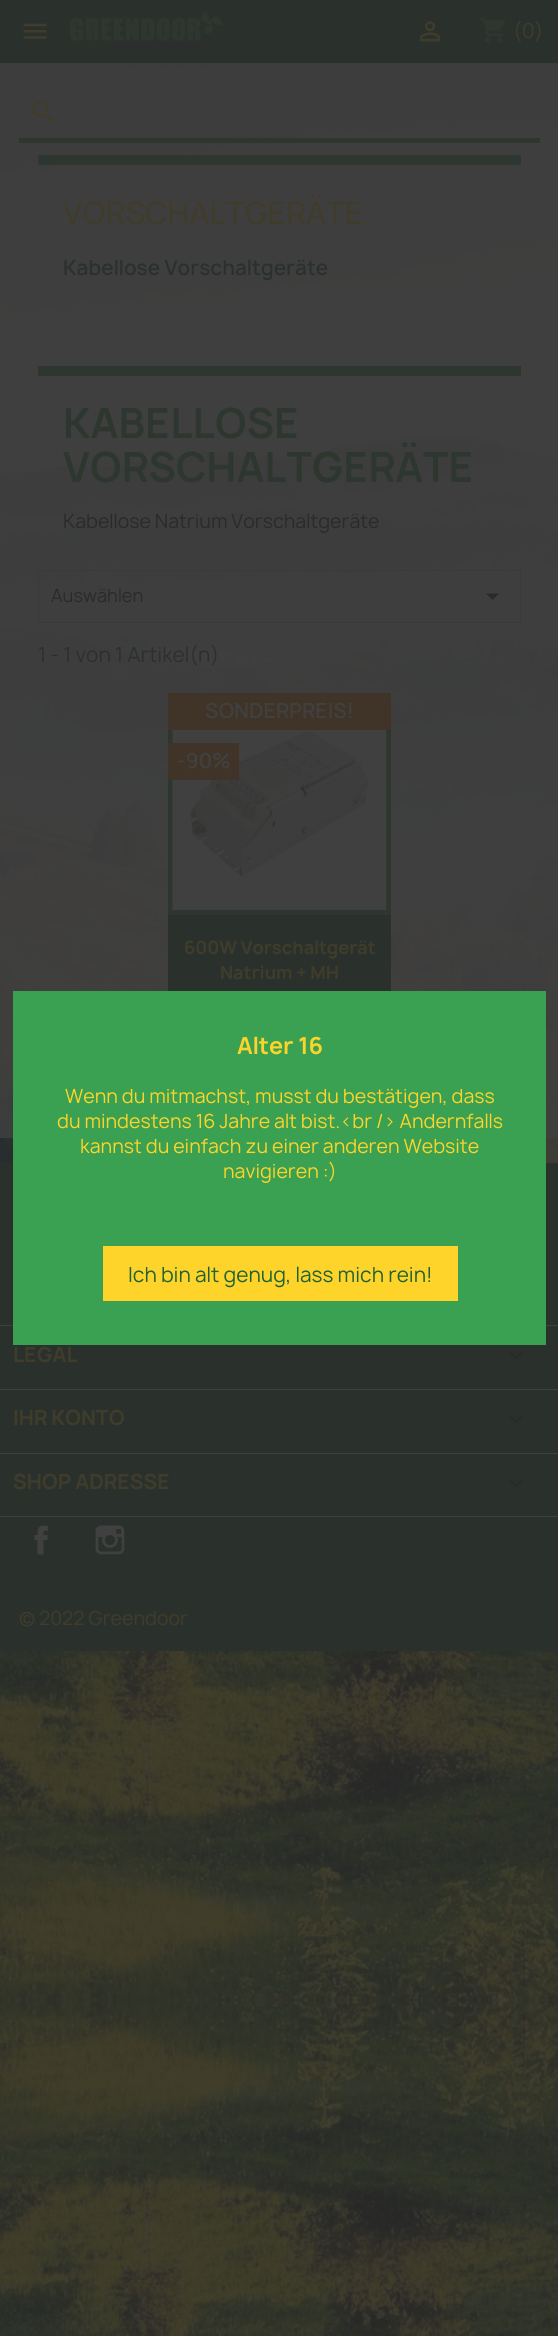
#include <cairo.h>
#include <math.h>
#include <stddef.h>


static void rgb(cairo_t *cr, int r, int g, int b)
{
	cairo_set_source_rgb(cr, r / 255.0, g / 255.0, b / 255.0);
}

static void face(cairo_t *cr, const char *family, double size, int italic, int bold)
{
	cairo_select_font_face(cr, family, italic ? CAIRO_FONT_SLANT_ITALIC : CAIRO_FONT_SLANT_NORMAL,
		bold ? CAIRO_FONT_WEIGHT_BOLD : CAIRO_FONT_WEIGHT_NORMAL);
	cairo_set_font_size(cr, size);
}

static void label(cairo_t *cr, double x, double y, const char *s)
{
	cairo_move_to(cr, x, y);
	cairo_show_text(cr, s);
}

static void rect(cairo_t *cr, double x, double y, double w, double h)
{
	cairo_rectangle(cr, x, y, w, h);
	cairo_fill(cr);
}

static void image(cairo_t *cr, const char *path, double x, double y, double w, double h)
{
	cairo_surface_t *image = cairo_image_surface_create_from_png(path);
	cairo_save(cr);
	cairo_set_source_surface(cr, image, x, y);
	cairo_rectangle(cr, x, y, w, h);
	cairo_fill(cr);
	cairo_restore(cr);
	cairo_surface_destroy(image);
}

static void draw(cairo_t *cr) {
	rgb(cr, 255, 255, 255);
	cairo_paint(cr);
	image(cr, "image0.png", 0, 63, 558, 2273);
	rgb(cr, 42, 49, 44);
	rect(cr, 0, 0, 558, 63);
	image(cr, "image1.png", 23, 23, 24, 16);
	image(cr, "image2.png", 70, 11, 153, 41);
	image(cr, "image3.png", 420, 21, 20, 21);
	image(cr, "image4.png", 480, 17, 25, 26);
	face(cr, "Manrope", 20, 0, 0);
	rgb(cr, 64, 60, 43);
	label(cr, 513, 38, "(0)");
	cairo_set_source_rgba(cr, 0.251, 0.251, 0.251, 0.8);
	rect(cr, 0, 63, 558, 92);
	rgb(cr, 45, 55, 47);
	rect(cr, 19, 138, 521, 5);
	image(cr, "image5.png", 32, 101, 23, 22);
	cairo_set_source_rgba(cr, 0.251, 0.251, 0.251, 0.8);
	rect(cr, 0, 155, 558, 983);
	rgb(cr, 45, 55, 47);
	rect(cr, 38, 155, 483, 10);
	face(cr, "Manrope Medium", 30, 0, 0);
	rgb(cr, 64, 60, 43);
	label(cr, 63, 224, "VORSCHALTGERÄTE");
	face(cr, "Manrope SemiBold", 20, 0, 0);
	rgb(cr, 42, 49, 44);
	label(cr, 63, 275, "Kabellose Vorschaltgeräte");
	rgb(cr, 45, 55, 47);
	rect(cr, 38, 366, 483, 10);
	face(cr, "Manrope", 40, 0, 1);
	label(cr, 63, 438, "KABELLOSE");
	label(cr, 63, 482, "VORSCHALTGERÄTE");
	face(cr, "Manrope", 18.75, 0, 0);
	rgb(cr, 42, 42, 42);
	label(cr, 63, 528, "Kabellose Natrium Vorschaltgeräte");
	cairo_rectangle(cr, 38.5, 570.5, 482, 52);
	rgb(cr, 58, 58, 58);
	cairo_set_line_width(cr, 1);
	cairo_stroke(cr);
	face(cr, "Manrope", 17.5, 0, 0);
	rgb(cr, 42, 42, 42);
	label(cr, 51, 602, "Auswählen");
	cairo_new_path(cr);
	cairo_move_to(cr, 486, 593.5);
	cairo_line_to(cr, 499, 593.5);
	cairo_line_to(cr, 492.5, 600);
	cairo_close_path(cr);
	cairo_fill(cr);
	face(cr, "Manrope", 20, 0, 0);
	rgb(cr, 42, 49, 44);
	label(cr, 38, 662, "1 - 1 von 1 Artikel(n)");
	rgb(cr, 45, 55, 47);
	rect(cr, 168, 730, 223, 185);
	rgb(cr, 64, 51, 39);
	rect(cr, 168, 693, 223, 37);
	face(cr, "Manrope SemiBold", 20, 0, 0);
	rgb(cr, 64, 64, 64);
	label(cr, 205, 718, "SONDERPREIS!");
	image(cr, "image6.png", 172, 730, 215, 180);
	rgb(cr, 64, 51, 39);
	rect(cr, 168, 743, 71, 37);
	rgb(cr, 64, 64, 64);
	label(cr, 177, 768, "-90%");
	rgb(cr, 42, 49, 44);
	rect(cr, 168, 915, 223, 76);
	face(cr, "Manrope", 17.5, 0, 1);
	rgb(cr, 64, 60, 43);
	label(cr, 184, 954, "600W Vorschaltgerät");
	label(cr, 220, 979, "Natrium + MH");
	rgb(cr, 42, 49, 44);
	rect(cr, 0, 1163, 558, 488);
	rgb(cr, 63, 63, 63);
	rect(cr, 0, 1325, 558, 1);
	rect(cr, 0, 1389, 558, 1);
	face(cr, "Manrope", 20, 0, 1);
	rgb(cr, 64, 60, 43);
	label(cr, 13, 1362, "LEGAL");
	image(cr, "image7.png", 509, 1350, 15, 10);
	rgb(cr, 63, 63, 63);
	rect(cr, 0, 1453, 558, 1);
	rgb(cr, 64, 60, 43);
	label(cr, 13, 1425, "IHR KONTO");
	image(cr, "image8.png", 509, 1414, 15, 10);
	rgb(cr, 63, 63, 63);
	rect(cr, 0, 1516, 558, 1);
	rgb(cr, 64, 60, 43);
	label(cr, 13, 1489, "SHOP ADRESSE");
	image(cr, "image9.png", 509, 1478, 15, 10);
	image(cr, "image10.png", 34, 1525, 14, 30);
	image(cr, "image11.png", 95, 1525, 30, 30);
	face(cr, "Manrope", 18.75, 0, 0);
	label(cr, 19, 1625, "© 2022 Greendoor");
	rgb(cr, 58, 161, 82);
	rect(cr, 13, 991, 533, 354);
	face(cr, "Manrope", 22.5, 0, 1);
	rgb(cr, 255, 212, 42);
	label(cr, 237, 1054, "Alter 16");
	face(cr, "Manrope", 18.75, 0, 0);
	label(cr, 65, 1103, "Wenn du mitmachst, musst du bestätigen, dass");
	label(cr, 57, 1128, "du mindestens 16 Jahre alt bist.<br /> Andernfalls");
	label(cr, 80, 1153, "kannst du einfach zu einer anderen Website");
	label(cr, 223, 1178, "navigieren :)");
	rect(cr, 103, 1246, 355, 55);
	face(cr, "Manrope", 20, 0, 0);
	rgb(cr, 31, 98, 52);
	label(cr, 128, 1282, "Ich bin alt genug, lass mich rein!");
}

int main(void) {
	cairo_surface_t *surface = cairo_image_surface_create(CAIRO_FORMAT_RGB24, 558, 2336);
	cairo_t *cr = cairo_create(surface);
	cairo_font_options_t *options = cairo_font_options_create();
	cairo_font_options_set_hint_metrics(options, CAIRO_HINT_METRICS_OFF);
	cairo_font_options_set_hint_style(options, CAIRO_HINT_STYLE_NONE);
	cairo_set_font_options(cr, options);
	cairo_set_miter_limit(cr, 4);
	draw(cr);
	cairo_surface_write_to_png(surface, "render.png");
	cairo_font_options_destroy(options);
	cairo_destroy(cr);
	cairo_surface_destroy(surface);
	return 0;
}
